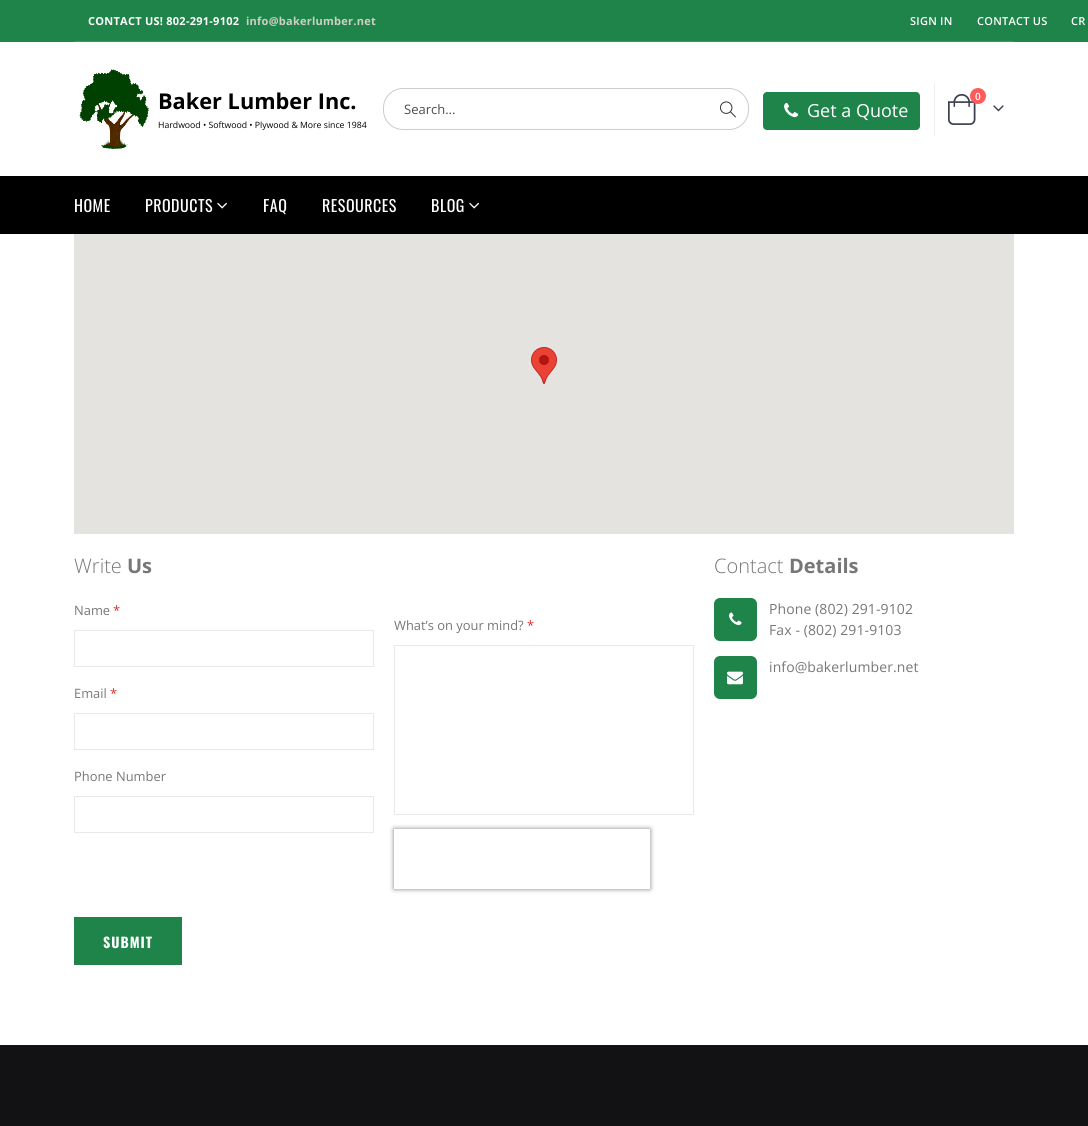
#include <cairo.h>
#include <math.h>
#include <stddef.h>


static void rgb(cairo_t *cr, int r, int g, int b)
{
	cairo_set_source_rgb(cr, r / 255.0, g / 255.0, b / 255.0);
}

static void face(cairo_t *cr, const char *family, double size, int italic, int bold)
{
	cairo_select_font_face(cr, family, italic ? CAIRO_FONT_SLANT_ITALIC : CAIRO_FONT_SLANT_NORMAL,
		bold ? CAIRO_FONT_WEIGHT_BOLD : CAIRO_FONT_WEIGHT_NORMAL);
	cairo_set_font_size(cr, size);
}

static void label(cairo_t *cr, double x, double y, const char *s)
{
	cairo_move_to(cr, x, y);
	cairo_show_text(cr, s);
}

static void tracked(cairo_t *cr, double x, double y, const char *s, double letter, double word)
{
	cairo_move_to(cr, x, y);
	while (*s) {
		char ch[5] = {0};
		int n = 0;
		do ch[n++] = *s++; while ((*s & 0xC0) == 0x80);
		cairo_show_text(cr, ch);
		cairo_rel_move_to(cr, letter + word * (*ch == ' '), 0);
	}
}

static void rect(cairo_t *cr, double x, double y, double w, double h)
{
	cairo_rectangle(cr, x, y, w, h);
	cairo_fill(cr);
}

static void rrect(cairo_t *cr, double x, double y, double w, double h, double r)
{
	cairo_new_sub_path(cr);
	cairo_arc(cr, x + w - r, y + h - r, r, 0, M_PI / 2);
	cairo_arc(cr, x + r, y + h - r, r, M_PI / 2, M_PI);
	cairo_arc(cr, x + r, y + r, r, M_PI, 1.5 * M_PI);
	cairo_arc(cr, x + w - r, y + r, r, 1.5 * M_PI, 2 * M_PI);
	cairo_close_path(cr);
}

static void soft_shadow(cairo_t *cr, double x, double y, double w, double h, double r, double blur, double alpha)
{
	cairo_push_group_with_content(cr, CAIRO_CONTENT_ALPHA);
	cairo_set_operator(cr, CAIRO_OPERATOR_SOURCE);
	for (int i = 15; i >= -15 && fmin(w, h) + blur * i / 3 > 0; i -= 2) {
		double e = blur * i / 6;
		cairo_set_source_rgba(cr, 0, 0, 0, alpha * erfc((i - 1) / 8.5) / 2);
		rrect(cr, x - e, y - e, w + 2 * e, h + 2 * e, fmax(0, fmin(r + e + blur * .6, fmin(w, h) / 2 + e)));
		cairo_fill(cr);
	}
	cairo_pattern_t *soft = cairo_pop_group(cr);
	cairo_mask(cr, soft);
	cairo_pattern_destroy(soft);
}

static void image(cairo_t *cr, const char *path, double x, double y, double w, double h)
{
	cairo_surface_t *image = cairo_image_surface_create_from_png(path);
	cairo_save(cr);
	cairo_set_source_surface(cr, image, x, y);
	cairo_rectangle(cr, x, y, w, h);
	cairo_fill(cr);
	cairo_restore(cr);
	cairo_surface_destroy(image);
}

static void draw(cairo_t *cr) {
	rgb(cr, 255, 255, 255);
	cairo_paint(cr);
	rgb(cr, 30, 132, 73);
	rect(cr, 0, 0, 1088, 42);
	face(cr, "Open Sans", 11, 0, 1);
	rgb(cr, 255, 255, 255);
	tracked(cr, 88, 25, "CONTACT US! 802-291-9102", 0.25, 0);
	rgb(cr, 205, 208, 196);
	tracked(cr, 246, 25, "info@bakerlumber.net", 0.25, 0);
	face(cr, "Open Sans SemiBold", 11, 0, 0);
	rgb(cr, 255, 255, 255);
	tracked(cr, 910, 25, "SIGN IN", 0.25, 0);
	tracked(cr, 977, 25, "CONTACT US", 0.25, 0);
	tracked(cr, 1071, 25, "CR", 0.25, 0);
	rgb(cr, 14, 149, 216);
	rect(cr, 74, 41, 940, 1);
	image(cr, "image0.png", 79, 69, 70, 80);
	face(cr, "Open Sans", 21.75, 0, 1);
	rgb(cr, 0, 0, 0);
	label(cr, 158, 109, "Baker Lumber Inc.");
	face(cr, "Open Sans", 8.7, 0, 0);
	label(cr, 158, 128, "Hardwood • Softwood • Plywood & More since 1984");
	rrect(cr, 383.5, 88.5, 365, 41, 19.5);
	rgb(cr, 204, 204, 204);
	cairo_set_line_width(cr, 1);
	cairo_stroke(cr);
	face(cr, "Open Sans", 13, 0, 0);
	rgb(cr, 77, 77, 77);
	label(cr, 404, 114, "Search...");
	image(cr, "image1.png", 720, 101, 16, 17);
	rgb(cr, 238, 238, 238);
	rect(cr, 934, 83, 1, 53);
	image(cr, "image2.png", 948, 93, 28, 32);
	rgb(cr, 255, 91, 91);
	cairo_arc(cr, 978, 96, 8, 0, 2 * M_PI);
	cairo_fill(cr);
	face(cr, "Open Sans SemiBold", 10, 0, 0);
	rgb(cr, 255, 255, 255);
	label(cr, 975, 100, "0");
	image(cr, "image3.png", 993, 105, 11, 7);
	rgb(cr, 30, 132, 73);
	rrect(cr, 763, 92, 157, 38, 4);
	cairo_fill(cr);
	image(cr, "image4.png", 784, 103, 15, 15);
	face(cr, "Open Sans", 18, 0, 0);
	rgb(cr, 255, 255, 255);
	label(cr, 807, 117, "Get a Quote");
	rgb(cr, 0, 0, 0);
	rect(cr, 0, 176, 1088, 58);
	face(cr, "Oswald", 16, 0, 0);
	rgb(cr, 255, 255, 255);
	tracked(cr, 74, 212, "HOME", 0.5, 0);
	tracked(cr, 145, 212, "PRODUCTS", 0.5, 0);
	image(cr, "image5.png", 217, 202, 10, 7);
	tracked(cr, 263, 212, "FAQ", 0.5, 0);
	tracked(cr, 322, 212, "RESOURCES", 0.5, 0);
	tracked(cr, 431, 212, "BLOG", 0.5, 0);
	image(cr, "image5.png", 469, 202, 10, 7);
	rgb(cr, 229, 227, 223);
	rect(cr, 74, 234, 940, 300);
	image(cr, "image6.png", 531, 347, 26, 37);
	face(cr, "Open Sans Light", 20, 0, 0);
	rgb(cr, 119, 119, 119);
	label(cr, 74, 573, "Write");
	face(cr, "Open Sans", 20, 0, 1);
	label(cr, 127, 573, "Us");
	face(cr, "Open Sans", 12.9, 0, 0);
	label(cr, 74, 615, "Name");
	rgb(cr, 224, 43, 39);
	label(cr, 113, 615, "*");
	cairo_rectangle(cr, 74.5, 630.5, 299, 36);
	rgb(cr, 232, 232, 232);
	cairo_stroke(cr);
	rgb(cr, 119, 119, 119);
	label(cr, 74, 698, "Email");
	rgb(cr, 224, 43, 39);
	label(cr, 110, 698, "*");
	cairo_rectangle(cr, 74.5, 713.5, 299, 36);
	rgb(cr, 232, 232, 232);
	cairo_stroke(cr);
	rgb(cr, 119, 119, 119);
	label(cr, 74, 781, "Phone Number");
	cairo_rectangle(cr, 74.5, 796.5, 299, 36);
	rgb(cr, 232, 232, 232);
	cairo_stroke(cr);
	rgb(cr, 119, 119, 119);
	label(cr, 394, 630, "What’s on your mind?");
	rgb(cr, 224, 43, 39);
	label(cr, 527, 630, "*");
	cairo_rectangle(cr, 394.5, 645.5, 299, 169);
	rgb(cr, 232, 232, 232);
	cairo_stroke(cr);
	cairo_save(cr);
	cairo_set_fill_rule(cr, CAIRO_FILL_RULE_EVEN_ODD);
	cairo_new_path(cr);
	cairo_move_to(cr, 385, 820);
	cairo_line_to(cr, 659, 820);
	cairo_line_to(cr, 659, 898);
	cairo_line_to(cr, 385, 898);
	cairo_close_path(cr);
	cairo_move_to(cr, 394, 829);
	cairo_line_to(cr, 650, 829);
	cairo_line_to(cr, 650, 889);
	cairo_line_to(cr, 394, 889);
	cairo_close_path(cr);
	cairo_clip(cr);
	rgb(cr, 128, 128, 128);
	soft_shadow(cr, 394, 829, 256, 60, 0, 2.5, 1);
	cairo_restore(cr);
	rgb(cr, 30, 132, 73);
	rect(cr, 74, 917, 108, 48);
	face(cr, "Oswald", 14, 0, 1);
	rgb(cr, 255, 255, 255);
	tracked(cr, 103, 948, "SUBMIT", 1, 0);
	face(cr, "Open Sans Light", 20, 0, 0);
	rgb(cr, 119, 119, 119);
	label(cr, 714, 573, "Contact");
	face(cr, "Open Sans", 20, 0, 1);
	label(cr, 789, 573, "Details");
	rgb(cr, 30, 132, 73);
	rrect(cr, 714, 598, 43, 43, 6);
	cairo_fill(cr);
	image(cr, "image7.png", 729, 612, 13, 14);
	face(cr, "Open Sans", 14, 0, 0);
	rgb(cr, 119, 119, 119);
	tracked(cr, 769, 614, "Phone (802) 291-9102", 0.1, 0);
	tracked(cr, 769, 635, "Fax - (802) 291-9103", 0.1, 0);
	rgb(cr, 30, 132, 73);
	rrect(cr, 714, 656, 43, 43, 6);
	cairo_fill(cr);
	image(cr, "image8.png", 727, 671, 16, 14);
	rgb(cr, 119, 119, 119);
	tracked(cr, 769, 672, "info@bakerlumber.net", 0.1, 0);
	rgb(cr, 18, 18, 20);
	rect(cr, 0, 1045, 1088, 81);
}

int main(void) {
	cairo_surface_t *surface = cairo_image_surface_create(CAIRO_FORMAT_RGB24, 1088, 1126);
	cairo_t *cr = cairo_create(surface);
	cairo_font_options_t *options = cairo_font_options_create();
	cairo_font_options_set_hint_metrics(options, CAIRO_HINT_METRICS_OFF);
	cairo_font_options_set_hint_style(options, CAIRO_HINT_STYLE_NONE);
	cairo_set_font_options(cr, options);
	cairo_set_miter_limit(cr, 4);
	draw(cr);
	cairo_surface_write_to_png(surface, "render.png");
	cairo_font_options_destroy(options);
	cairo_destroy(cr);
	cairo_surface_destroy(surface);
	return 0;
}
